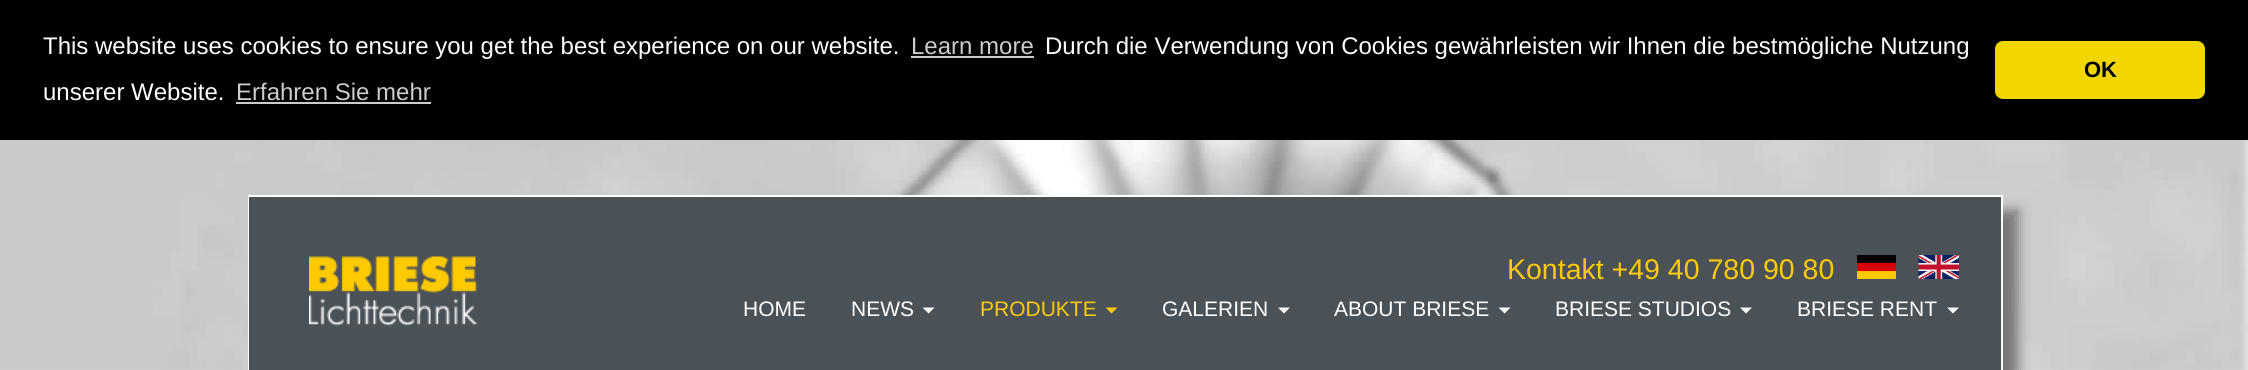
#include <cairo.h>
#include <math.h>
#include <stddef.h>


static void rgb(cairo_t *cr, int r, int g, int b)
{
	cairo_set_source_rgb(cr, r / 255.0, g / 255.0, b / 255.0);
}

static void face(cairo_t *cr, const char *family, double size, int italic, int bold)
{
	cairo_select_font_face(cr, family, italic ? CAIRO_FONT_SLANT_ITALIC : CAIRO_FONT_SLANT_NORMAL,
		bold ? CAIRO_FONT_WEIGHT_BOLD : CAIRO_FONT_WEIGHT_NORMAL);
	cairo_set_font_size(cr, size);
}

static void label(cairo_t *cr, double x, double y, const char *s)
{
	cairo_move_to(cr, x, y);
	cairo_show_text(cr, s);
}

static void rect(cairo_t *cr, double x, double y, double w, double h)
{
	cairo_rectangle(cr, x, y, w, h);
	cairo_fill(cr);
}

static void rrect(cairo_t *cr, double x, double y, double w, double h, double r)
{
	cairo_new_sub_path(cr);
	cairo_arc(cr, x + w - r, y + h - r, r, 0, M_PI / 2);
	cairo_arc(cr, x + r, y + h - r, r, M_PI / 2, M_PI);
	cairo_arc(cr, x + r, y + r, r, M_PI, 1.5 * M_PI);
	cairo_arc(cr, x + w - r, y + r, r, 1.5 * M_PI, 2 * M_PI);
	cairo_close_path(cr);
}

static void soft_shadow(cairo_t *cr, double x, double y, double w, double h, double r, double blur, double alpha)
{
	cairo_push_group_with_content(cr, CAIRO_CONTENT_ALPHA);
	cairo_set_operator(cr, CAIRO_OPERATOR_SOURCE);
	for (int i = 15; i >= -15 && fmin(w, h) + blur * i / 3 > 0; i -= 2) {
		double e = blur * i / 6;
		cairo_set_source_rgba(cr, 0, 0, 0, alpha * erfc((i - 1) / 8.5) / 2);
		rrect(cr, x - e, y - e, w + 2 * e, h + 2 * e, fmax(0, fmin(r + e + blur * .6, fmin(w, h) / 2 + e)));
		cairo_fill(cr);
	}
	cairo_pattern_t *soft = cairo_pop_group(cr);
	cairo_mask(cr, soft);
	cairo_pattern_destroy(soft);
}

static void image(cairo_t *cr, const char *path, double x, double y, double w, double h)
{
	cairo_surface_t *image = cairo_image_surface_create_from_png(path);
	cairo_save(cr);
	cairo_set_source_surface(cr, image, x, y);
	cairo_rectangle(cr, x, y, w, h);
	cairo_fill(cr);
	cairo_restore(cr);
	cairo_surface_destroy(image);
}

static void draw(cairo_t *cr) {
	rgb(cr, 255, 255, 255);
	cairo_paint(cr);
	image(cr, "image0.png", 0, 140, 2248, 230);
	rgb(cr, 0, 0, 0);
	rect(cr, 0, 0, 2248, 140);
	face(cr, "Liberation Sans", 24, 0, 0);
	rgb(cr, 255, 255, 255);
	label(cr, 43, 54, "This website uses cookies to ensure you get the best experience on our website.");
	rgb(cr, 204, 204, 204);
	label(cr, 911, 54, "Learn more");
	rect(cr, 911, 56, 123, 2);
	rgb(cr, 255, 255, 255);
	label(cr, 1045, 54, "Durch die Verwendung von Cookies gewährleisten wir Ihnen die bestmögliche Nutzung");
	label(cr, 43, 100, "unserer Website.");
	rgb(cr, 204, 204, 204);
	label(cr, 236, 100, "Erfahren Sie mehr");
	rect(cr, 236, 102, 195, 2);
	rgb(cr, 241, 214, 0);
	rrect(cr, 1995, 41, 210, 58, 8);
	cairo_fill(cr);
	face(cr, "Liberation Sans", 22, 0, 1);
	rgb(cr, 0, 0, 0);
	label(cr, 2084, 77, "OK");
	rgb(cr, 119, 119, 119);
	soft_shadow(cr, 263, 210, 1755, 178, 0, 6, 1);
	cairo_rectangle(cr, 249, 196, 1753, 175);
	rgb(cr, 255, 255, 255);
	cairo_stroke(cr);
	rgb(cr, 74, 81, 87);
	rect(cr, 249, 197, 1752, 173);
	image(cr, "image1.png", 309, 256, 168, 70);
	face(cr, "Liberation Sans", 28.5, 0, 0);
	rgb(cr, 255, 203, 7);
	label(cr, 1507, 279, "Kontakt +49 40 780 90 80");
	image(cr, "image2.png", 1857, 255, 39, 24);
	image(cr, "image3.png", 1918, 255, 41, 24);
	face(cr, "Liberation Sans", 21, 0, 0);
	rgb(cr, 255, 255, 255);
	label(cr, 743, 316, "HOME");
	label(cr, 851, 316, "NEWS");
	cairo_new_path(cr);
	cairo_move_to(cr, 922.5, 307.5);
	cairo_line_to(cr, 934.5, 307.5);
	cairo_line_to(cr, 928.5, 313.5);
	cairo_close_path(cr);
	cairo_fill(cr);
	rgb(cr, 255, 203, 7);
	label(cr, 980, 316, "PRODUKTE");
	cairo_new_path(cr);
	cairo_move_to(cr, 1105.5, 307.5);
	cairo_line_to(cr, 1117.5, 307.5);
	cairo_line_to(cr, 1111.5, 313.5);
	cairo_close_path(cr);
	cairo_fill(cr);
	rgb(cr, 255, 255, 255);
	label(cr, 1162, 316, "GALERIEN");
	cairo_new_path(cr);
	cairo_move_to(cr, 1278, 307.5);
	cairo_line_to(cr, 1290, 307.5);
	cairo_line_to(cr, 1284, 313.5);
	cairo_close_path(cr);
	cairo_fill(cr);
	label(cr, 1334, 316, "ABOUT BRIESE");
	cairo_new_path(cr);
	cairo_move_to(cr, 1498.5, 307.5);
	cairo_line_to(cr, 1510.5, 307.5);
	cairo_line_to(cr, 1504.5, 313.5);
	cairo_close_path(cr);
	cairo_fill(cr);
	label(cr, 1555, 316, "BRIESE STUDIOS");
	cairo_new_path(cr);
	cairo_move_to(cr, 1740, 307.5);
	cairo_line_to(cr, 1752, 307.5);
	cairo_line_to(cr, 1746, 313.5);
	cairo_close_path(cr);
	cairo_fill(cr);
	label(cr, 1797, 316, "BRIESE RENT");
	cairo_new_path(cr);
	cairo_move_to(cr, 1947, 307.5);
	cairo_line_to(cr, 1959, 307.5);
	cairo_line_to(cr, 1953, 313.5);
	cairo_close_path(cr);
	cairo_fill(cr);
}

int main(void) {
	cairo_surface_t *surface = cairo_image_surface_create(CAIRO_FORMAT_RGB24, 2248, 370);
	cairo_t *cr = cairo_create(surface);
	cairo_font_options_t *options = cairo_font_options_create();
	cairo_font_options_set_hint_metrics(options, CAIRO_HINT_METRICS_OFF);
	cairo_font_options_set_hint_style(options, CAIRO_HINT_STYLE_NONE);
	cairo_set_font_options(cr, options);
	cairo_set_miter_limit(cr, 4);
	draw(cr);
	cairo_surface_write_to_png(surface, "render.png");
	cairo_font_options_destroy(options);
	cairo_destroy(cr);
	cairo_surface_destroy(surface);
	return 0;
}
